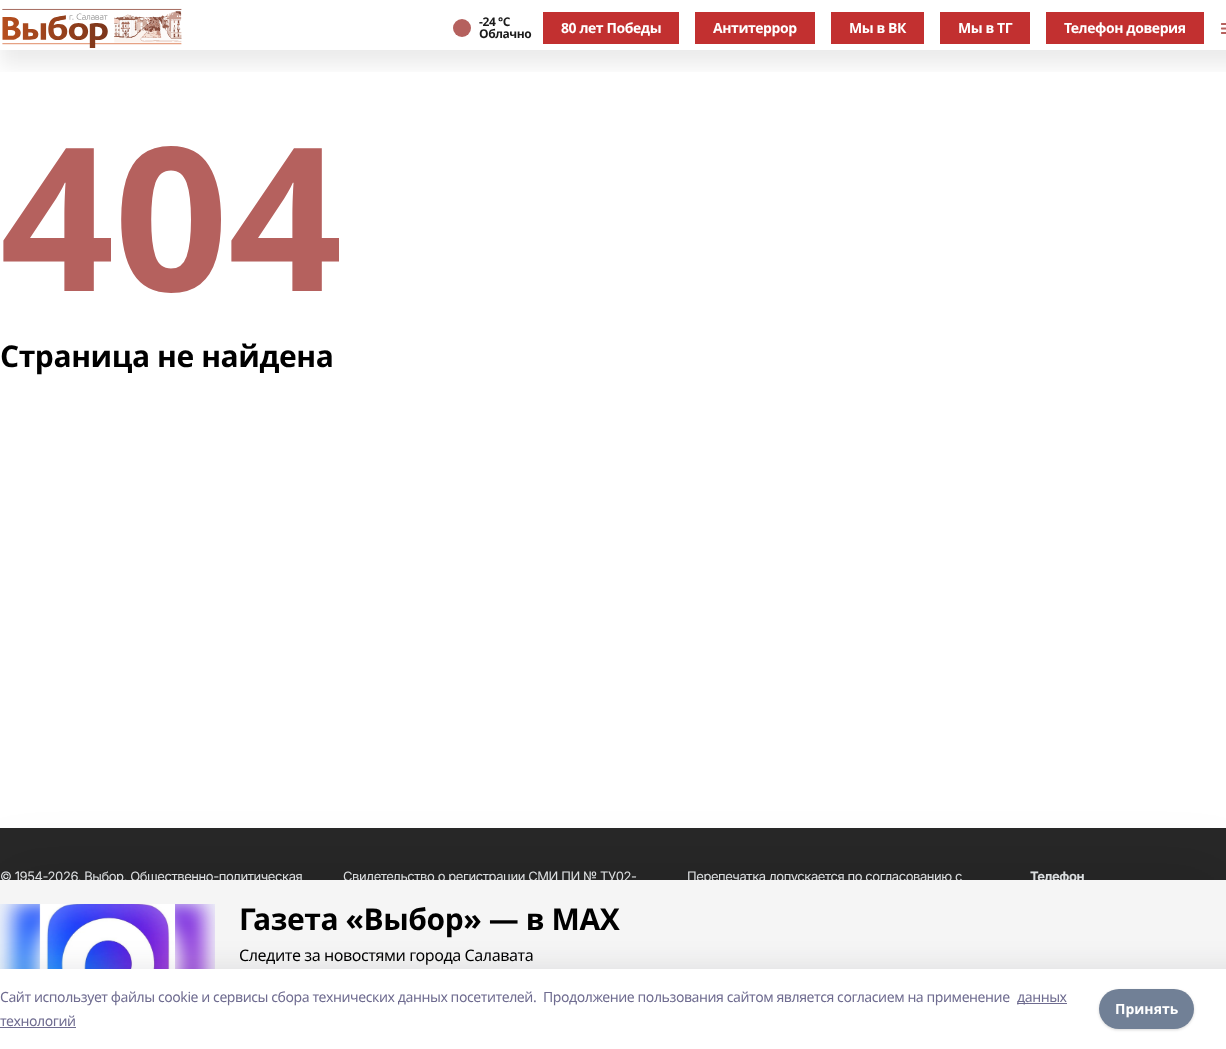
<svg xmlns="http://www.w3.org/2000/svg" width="1226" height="1049">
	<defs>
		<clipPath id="clip1"><rect x="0" y="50" width="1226" height="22" /></clipPath>
	</defs>
	<rect width="100%" height="100%" fill="#FFFFFF" />
	<g clip-path="url(#clip1)">
		<rect x="0" y="15" width="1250" height="50" fill="#000000" fill-opacity="0.08" filter="blur(10px)" />
	</g>
	<image x="2" y="8" width="180" height="40" href="assets/img1.png" />
	<circle cx="462" cy="28" r="9" fill="#B5615E" />
	<g font-family="Noto Sans" font-size="12" font-weight="700" letter-spacing="-0.42" fill="#1A1A1A">
		<text x="479" y="26">-24 °С</text>
		<text x="479" y="38">Облачно</text>
	</g>
	<rect x="543" y="12" width="136" height="32" fill="#C23030" />
	<text x="561" y="33" font-family="Noto Sans" font-size="14" font-weight="700" letter-spacing="-0.42" fill="#FFFFFF">80 лет Победы</text>
	<rect x="695" y="12" width="120" height="32" fill="#C23030" />
	<text x="713" y="33" font-family="Noto Sans" font-size="14" font-weight="700" letter-spacing="-0.42" fill="#FFFFFF">Антитеррор</text>
	<rect x="831" y="12" width="93" height="32" fill="#C23030" />
	<text x="849" y="33" font-family="Noto Sans" font-size="14" font-weight="700" letter-spacing="-0.42" fill="#FFFFFF">Мы в ВК</text>
	<rect x="940" y="12" width="90" height="32" fill="#C23030" />
	<text x="958" y="33" font-family="Noto Sans" font-size="14" font-weight="700" letter-spacing="-0.42" fill="#FFFFFF">Мы в ТГ</text>
	<rect x="1046" y="12" width="158" height="32" fill="#C23030" />
	<text x="1064" y="33" font-family="Noto Sans" font-size="14" font-weight="700" letter-spacing="-0.42" fill="#FFFFFF">Телефон доверия</text>
	<image x="1221" y="23" width="5" height="11" href="assets/img2.png" />
	<text x="0" y="291" font-family="Noto Sans" font-size="200" font-weight="700" letter-spacing="-0.42" fill="#B5615E">404</text>
	<text x="0" y="367" font-family="Noto Sans" font-size="30" font-weight="700" letter-spacing="-0.42" fill="#000000">Страница не найдена</text>
	<rect x="0" y="828" width="1226" height="52" fill="#282828" />
	<g font-family="Inter" font-size="13" letter-spacing="-0.42" fill="#ECEFF1">
		<text x="0" y="881">© 1954-2026, Выбор, Общественно-политическая</text>
		<text x="343" y="881">Свидетельство о регистрации СМИ ПИ № ТУ02-</text>
		<text x="687" y="881">Перепечатка допускается по согласованию с</text>
	</g>
	<text x="1030" y="881" font-family="Inter" font-size="13" font-weight="700" letter-spacing="-0.42" fill="#ECEFF1">Телефон</text>
	<rect x="0" y="870" width="1226" height="169" fill="#000000" fill-opacity="0.12" filter="blur(30px)" />
	<rect x="0" y="880" width="1226" height="89" fill="#F5F5F5" />
	<rect x="0" y="904" width="215" height="65" fill="#EDF2F7" />
	<image x="0" y="904" width="215" height="65" href="assets/img3.png" />
	<image x="39" y="904" width="137" height="65" href="assets/img4.png" />
	<text x="239" y="930" font-family="Noto Sans" font-size="30" font-weight="700" letter-spacing="-0.42" fill="#000000">Газета «Выбор» — в МАХ</text>
	<text x="239" y="961" font-family="Noto Sans" font-size="16" letter-spacing="-0.42" fill="#000000">Следите за новостями города Салавата</text>
	<rect x="0" y="963" width="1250" height="80" fill="#14142B" fill-opacity="0.08" filter="blur(11.5px)" />
	<rect x="0" y="969" width="1226" height="80" fill="#FFFFFF" />
	<g font-family="Noto Sans" font-size="14" letter-spacing="-0.42" fill="#6F6C90">
		<text x="0" y="1002">Cайт использует файлы cookie и сервисы сбора технических данных посетителей.</text>
		<text x="543" y="1002">Продолжение пользования сайтом является согласием на применение</text>
	</g>
	<rect x="1017" y="1003" width="50" height="1" fill="#6F6C90" />
	<g font-family="Noto Sans" font-size="14" letter-spacing="-0.42" fill="#6F6C90">
		<text x="1017" y="1002">данных</text>
		<text x="0" y="1026">технологий</text>
	</g>
	<rect x="0" y="1027" width="76" height="1" fill="#6F6C90" />
	<rect x="1099" y="990" width="95" height="40" rx="20" fill="#000000" fill-opacity="0.06" filter="blur(1px)" />
	<rect x="1099" y="990" width="95" height="40" rx="20" fill="#000000" fill-opacity="0.1" filter="blur(1.5px)" />
	<rect x="1099" y="989" width="95" height="40" rx="20" fill="#718096" />
	<text x="1115" y="1014" font-family="Noto Sans" font-size="14" font-weight="700" fill="#FFFFFF">Принять</text>
</svg>
